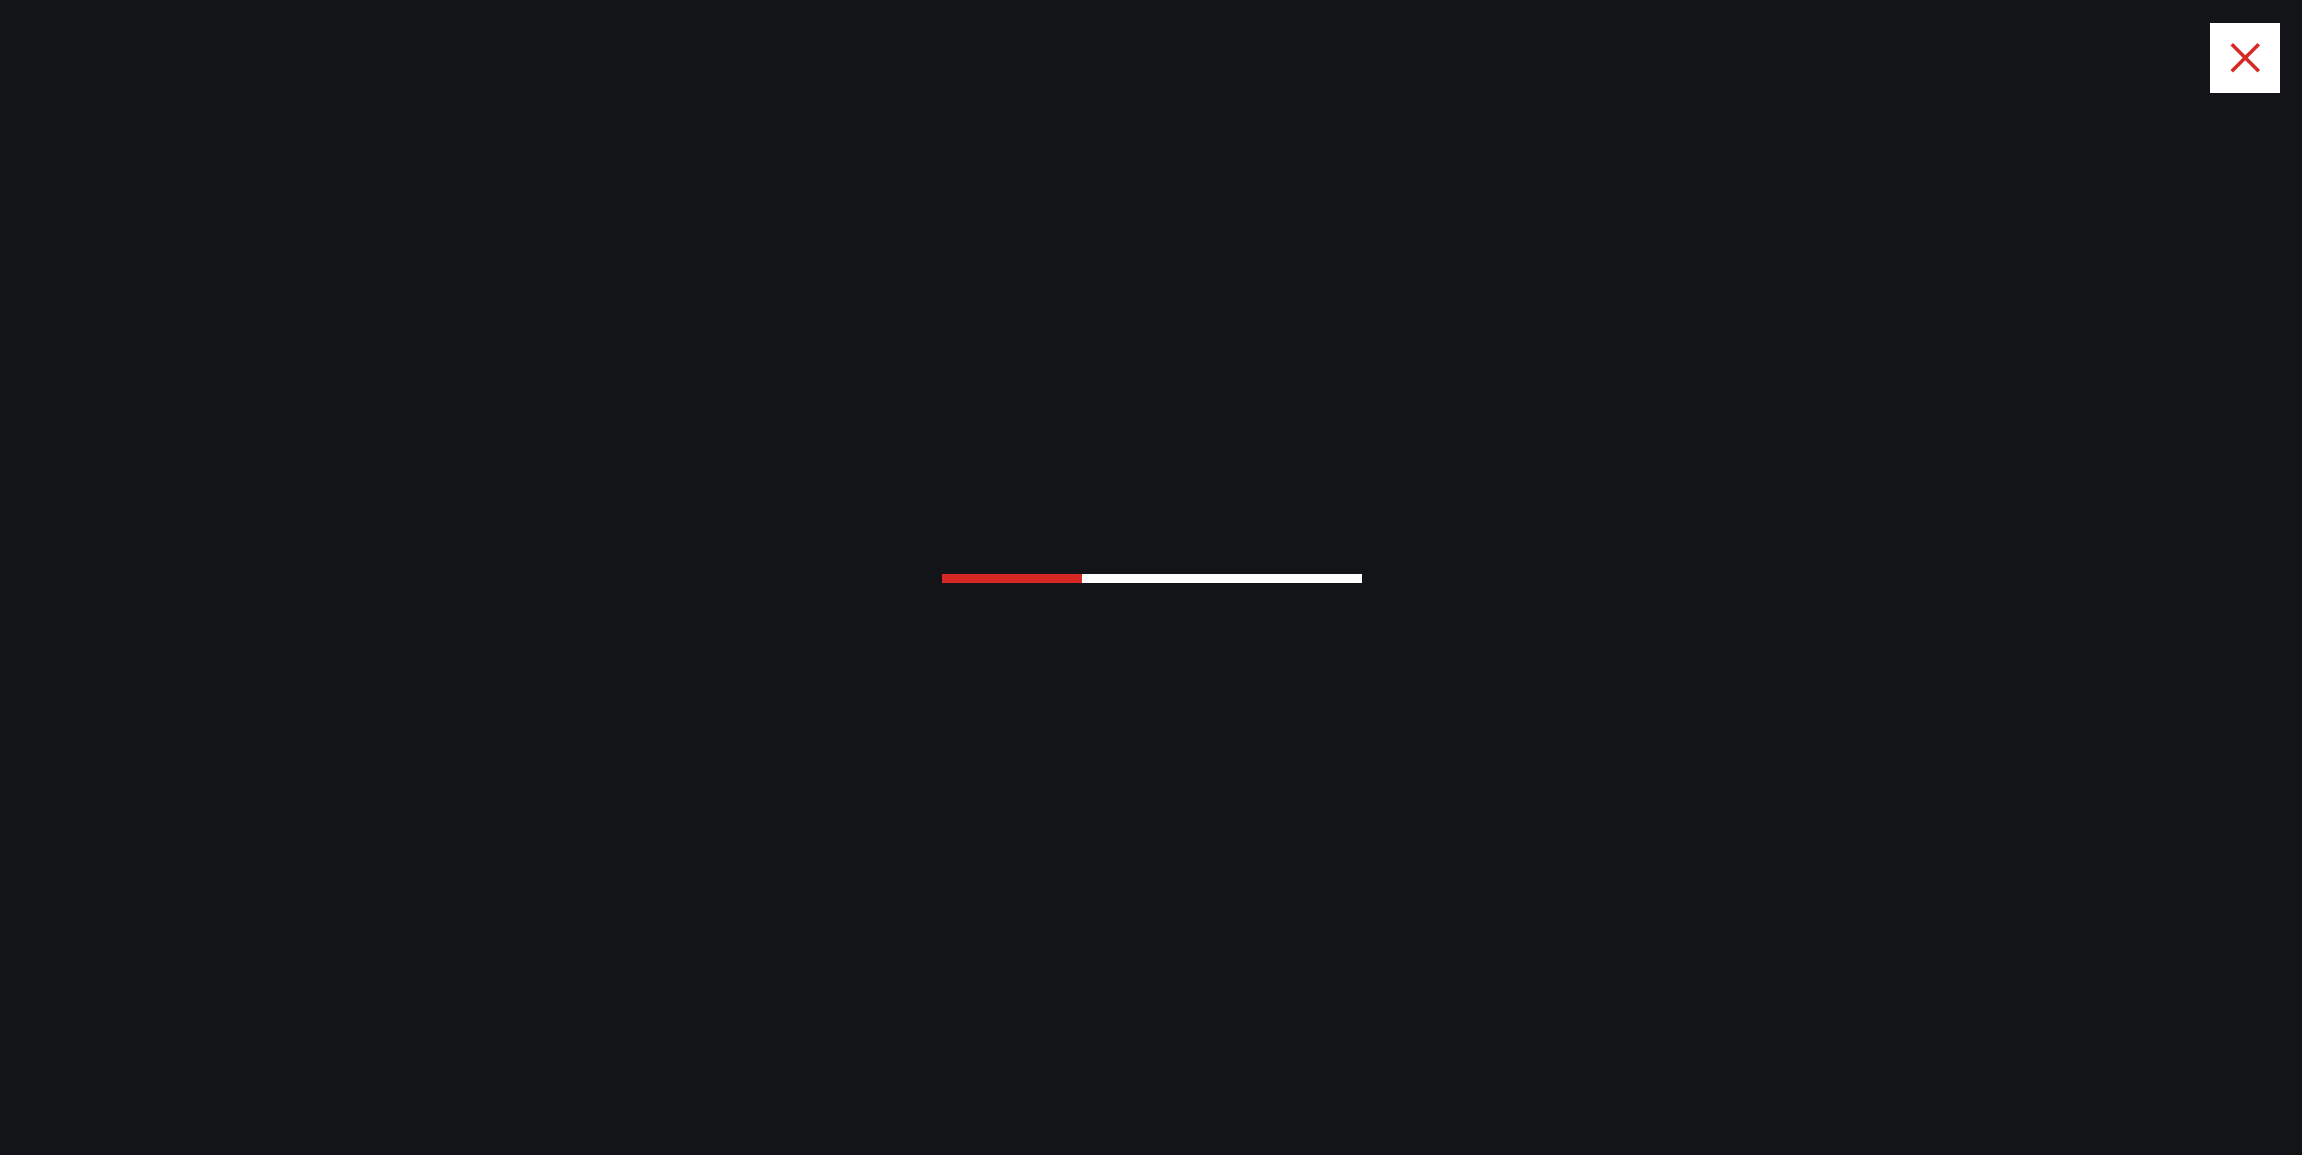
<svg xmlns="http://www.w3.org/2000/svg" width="2302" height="1155">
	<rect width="100%" height="100%" fill="#121418" />
	<rect x="2210" y="23" width="70" height="70" fill="#FFFFFF" />
	<path d="M2230.5 70L2257.5 43L2260 45.5L2233 72.5Z" fill="#D72924" />
	<path d="M2257.5 72.5L2230.5 45.5L2233 43L2260 70Z" fill="#D72924" />
	<rect x="1082" y="574" width="280" height="9" fill="#FFFFFF" />
	<rect x="942" y="574" width="140" height="9" fill="#D72924" />
</svg>
